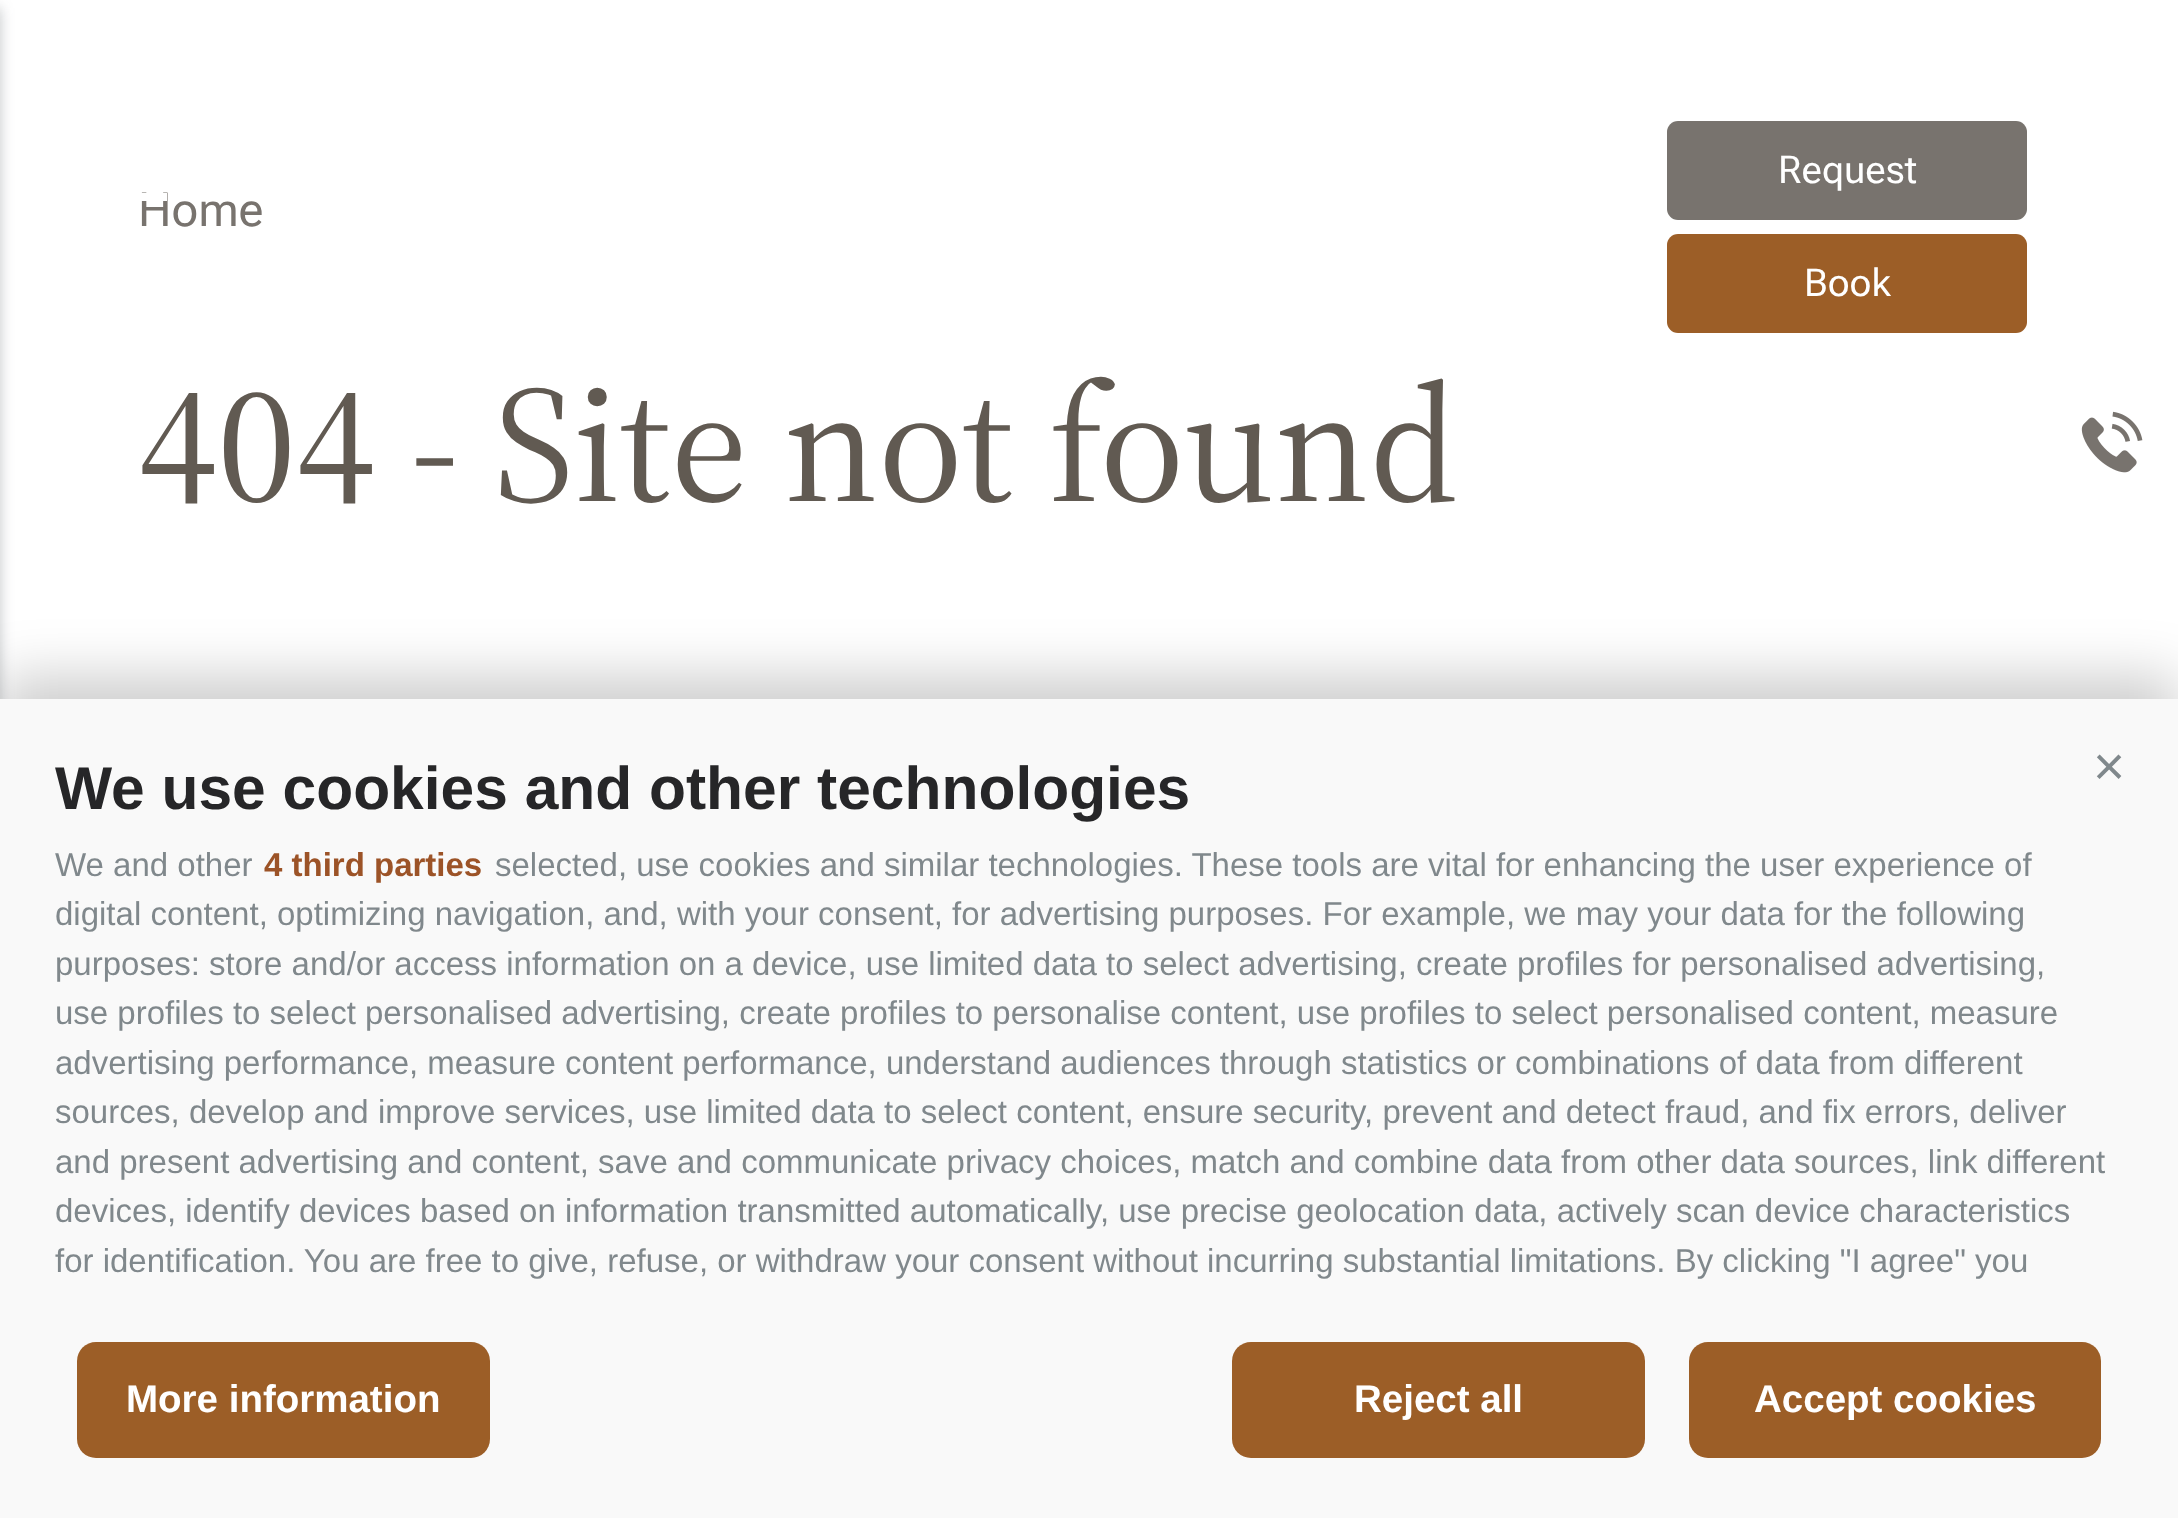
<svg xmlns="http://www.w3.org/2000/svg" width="2178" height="1518">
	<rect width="100%" height="100%" fill="#FFFFFF" />
	<text x="138" y="226" font-family="Roboto Flex" font-size="47" fill="#78736E">Home</text>
	<text x="138" y="501" font-family="'Source Serif 4'" font-size="165" fill="#615A52">404 - Site not found</text>
	<rect x="138" y="193" width="29" height="8" fill="#FFFFFF" />
	<rect x="-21" y="8" width="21" height="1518" fill="#393F48" fill-opacity="0.3" filter="blur(7px)" />
	<rect x="1667" y="121" width="360" height="99" rx="11" fill="#78736E" />
	<text x="1778" y="183" font-family="Roboto Flex" font-size="38.5" fill="#FFFFFF">Request</text>
	<rect x="1667" y="234" width="360" height="99" rx="11" fill="#9C5E27" />
	<text x="1804" y="296" font-family="Roboto Flex" font-size="38.5" fill="#FFFFFF">Book</text>
	<image x="2081" y="411" width="62" height="62" href="assets/img1.png" />
	<rect x="0" y="677" width="2178" height="819" fill="#000000" fill-opacity="0.2" filter="blur(27.5px)" />
	<rect x="0" y="699" width="2178" height="819" fill="#F9F9F9" />
	<text x="55" y="809" font-family="Liberation Sans" font-size="60.5" font-weight="700" fill="#262628">We use cookies and other technologies</text>
	<text x="2093" y="785" font-family="Liberation Sans" font-size="55" fill="#80888C">×</text>
	<text x="55" y="876" font-family="Liberation Sans" font-size="33" fill="#80888C">We and other</text>
	<text x="264" y="876" font-family="Liberation Sans" font-size="33" font-weight="700" fill="#9C5327">4 third parties</text>
	<g font-family="Liberation Sans" font-size="33" fill="#80888C">
		<text x="495" y="876">selected, use cookies and similar technologies. These tools are vital for enhancing the user experience of</text>
		<text x="55" y="925">digital content, optimizing navigation, and, with your consent, for advertising purposes. For example, we may your data for the following</text>
		<text x="55" y="975">purposes: store and/or access information on a device, use limited data to select advertising, create profiles for personalised advertising,</text>
		<text x="55" y="1024">use profiles to select personalised advertising, create profiles to personalise content, use profiles to select personalised content, measure</text>
		<text x="55" y="1074">advertising performance, measure content performance, understand audiences through statistics or combinations of data from different</text>
		<text x="55" y="1123">sources, develop and improve services, use limited data to select content, ensure security, prevent and detect fraud, and fix errors, deliver</text>
		<text x="55" y="1173">and present advertising and content, save and communicate privacy choices, match and combine data from other data sources, link different</text>
		<text x="55" y="1222">devices, identify devices based on information transmitted automatically, use precise geolocation data, actively scan device characteristics</text>
		<text x="55" y="1272">for identification. You are free to give, refuse, or withdraw your consent without incurring substantial limitations. By clicking "I agree" you</text>
	</g>
	<rect x="77" y="1342" width="413" height="116" rx="19" fill="#9C5E27" />
	<text x="126" y="1412" font-family="Liberation Sans" font-size="38.5" font-weight="700" fill="#FFFFFF">More information</text>
	<rect x="1232" y="1342" width="413" height="116" rx="19" fill="#9C5E27" />
	<text x="1354" y="1412" font-family="Liberation Sans" font-size="38.5" font-weight="700" fill="#FFFFFF">Reject all</text>
	<rect x="1689" y="1342" width="412" height="116" rx="19" fill="#9C5E27" />
	<text x="1754" y="1412" font-family="Liberation Sans" font-size="38.5" font-weight="700" fill="#FFFFFF">Accept cookies</text>
</svg>
